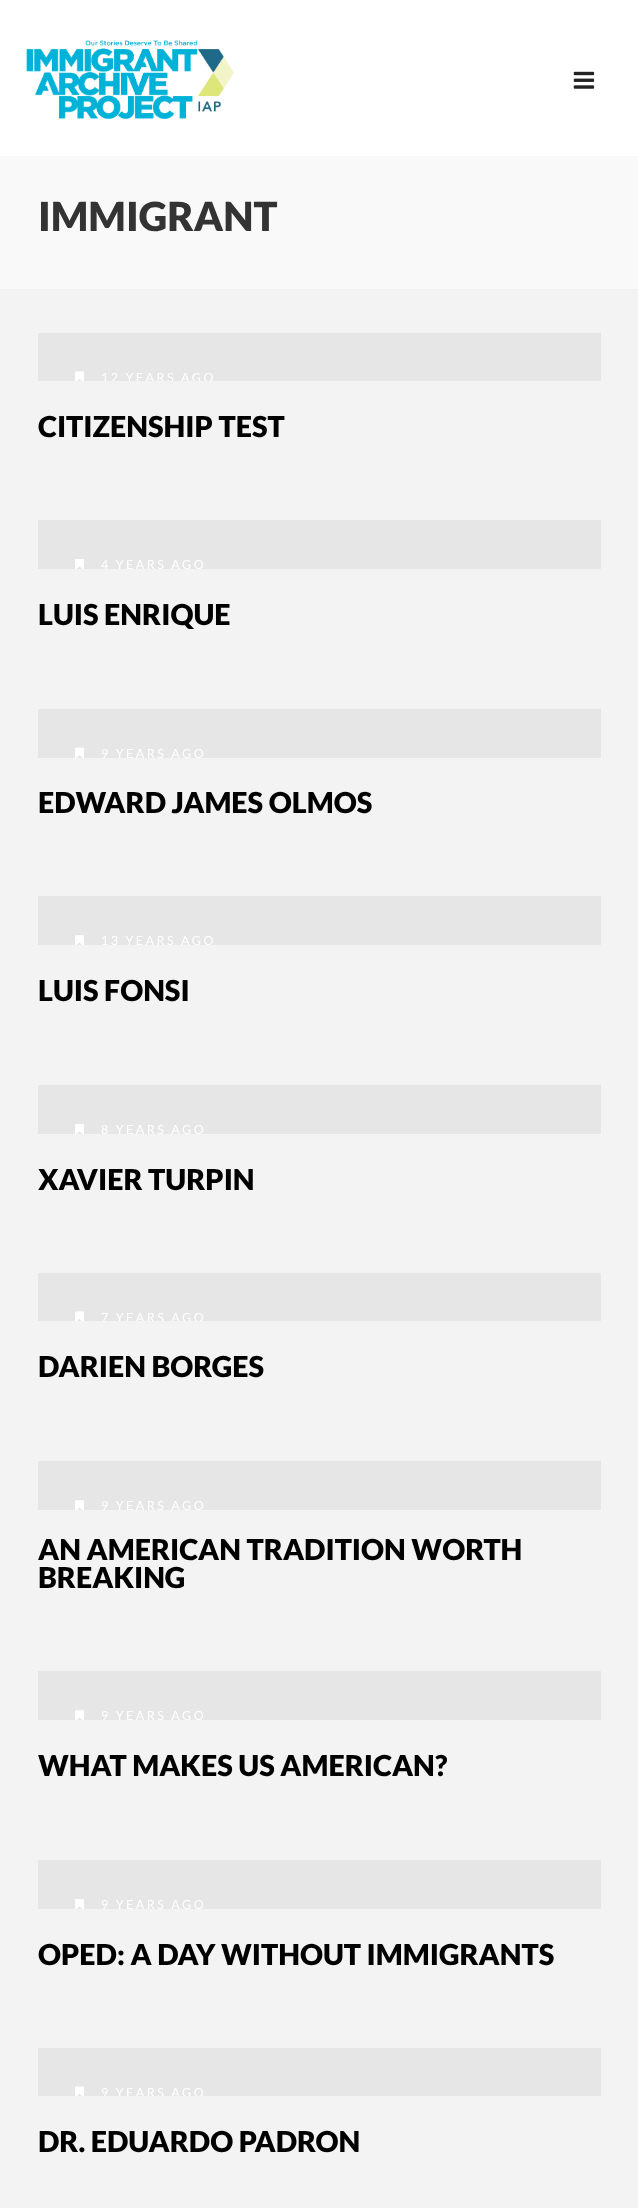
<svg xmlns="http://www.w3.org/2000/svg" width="638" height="2208">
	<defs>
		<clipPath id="clip1"><rect x="38" y="333" width="563" height="48" /></clipPath>
		<clipPath id="clip2"><rect x="38" y="1273" width="563" height="48" /></clipPath>
		<clipPath id="clip3"><rect x="38" y="2048" width="563" height="48" /></clipPath>
	</defs>
	<rect width="100%" height="100%" fill="#FFFFFF" />
	<image x="26" y="40" width="209" height="80" href="assets/img1.png" />
	<image x="573" y="71" width="22" height="18" href="assets/img2.png" />
	<rect x="0" y="289" width="638" height="1919" fill="#F3F3F3" />
	<rect x="0" y="156" width="638" height="133" fill="#F9F9F9" />
	<text x="38" y="231" font-family="Lato" font-size="40" font-weight="900" fill="#333333">IMMIGRANT</text>
	<rect x="38" y="333" width="563" height="48" fill="#E6E6E6" />
	<image x="75" y="371" width="9" height="10" href="assets/img3.png" />
	<g clip-path="url(#clip1)">
		<text x="101" y="382" font-family="Lato" font-size="12.5" letter-spacing="2.5" fill="#FFFFFF">12 YEARS AGO</text>
	</g>
	<text x="38" y="437" font-family="Lato" font-size="28.75" font-weight="900" fill="#000000">CITIZENSHIP TEST</text>
	<rect x="38" y="520" width="563" height="49" fill="#E6E6E6" />
	<image x="75" y="559" width="9" height="10" href="assets/img4.png" />
	<text x="101" y="569" font-family="Lato" font-size="12.5" letter-spacing="2.5" fill="#FFFFFF">4 YEARS AGO</text>
	<text x="38" y="625" font-family="Lato" font-size="28.75" font-weight="900" fill="#000000">LUIS ENRIQUE</text>
	<rect x="38" y="709" width="563" height="49" fill="#E6E6E6" />
	<image x="75" y="747" width="9" height="11" href="assets/img5.png" />
	<text x="101" y="758" font-family="Lato" font-size="12.5" letter-spacing="2.5" fill="#FFFFFF">9 YEARS AGO</text>
	<text x="38" y="813" font-family="Lato" font-size="28.75" font-weight="900" fill="#000000">EDWARD JAMES OLMOS</text>
	<rect x="38" y="896" width="563" height="49" fill="#E6E6E6" />
	<image x="75" y="935" width="9" height="10" href="assets/img6.png" />
	<text x="101" y="945" font-family="Lato" font-size="12.5" letter-spacing="2.5" fill="#FFFFFF">13 YEARS AGO</text>
	<text x="38" y="1001" font-family="Lato" font-size="28.75" font-weight="900" fill="#000000">LUIS FONSI</text>
	<rect x="38" y="1085" width="563" height="49" fill="#E6E6E6" />
	<image x="75" y="1124" width="9" height="10" href="assets/img4.png" />
	<text x="101" y="1134" font-family="Lato" font-size="12.5" letter-spacing="2.5" fill="#FFFFFF">8 YEARS AGO</text>
	<text x="38" y="1190" font-family="Lato" font-size="28.75" font-weight="900" fill="#000000">XAVIER TURPIN</text>
	<rect x="38" y="1273" width="563" height="48" fill="#E6E6E6" />
	<image x="75" y="1311" width="9" height="10" href="assets/img3.png" />
	<g clip-path="url(#clip2)">
		<text x="101" y="1322" font-family="Lato" font-size="12.5" letter-spacing="2.5" fill="#FFFFFF">7 YEARS AGO</text>
	</g>
	<text x="38" y="1377" font-family="Lato" font-size="28.75" font-weight="900" fill="#000000">DARIEN BORGES</text>
	<rect x="38" y="1461" width="563" height="49" fill="#E6E6E6" />
	<image x="75" y="1500" width="9" height="10" href="assets/img6.png" />
	<text x="101" y="1510" font-family="Lato" font-size="12.5" letter-spacing="2.5" fill="#FFFFFF">9 YEARS AGO</text>
	<g font-family="Lato" font-size="28.75" font-weight="900" fill="#000000">
		<text x="38" y="1560">AN AMERICAN TRADITION WORTH</text>
		<text x="38" y="1588">BREAKING</text>
	</g>
	<rect x="38" y="1671" width="563" height="49" fill="#E6E6E6" />
	<image x="75" y="1710" width="9" height="10" href="assets/img6.png" />
	<text x="101" y="1720" font-family="Lato" font-size="12.5" letter-spacing="2.5" fill="#FFFFFF">9 YEARS AGO</text>
	<text x="38" y="1776" font-family="Lato" font-size="28.75" font-weight="900" fill="#000000">WHAT MAKES US AMERICAN?</text>
	<rect x="38" y="1860" width="563" height="49" fill="#E6E6E6" />
	<image x="75" y="1899" width="9" height="10" href="assets/img4.png" />
	<text x="101" y="1909" font-family="Lato" font-size="12.5" letter-spacing="2.5" fill="#FFFFFF">9 YEARS AGO</text>
	<text x="38" y="1965" font-family="Lato" font-size="28.75" font-weight="900" fill="#000000">OPED: A DAY WITHOUT IMMIGRANTS</text>
	<rect x="38" y="2048" width="563" height="48" fill="#E6E6E6" />
	<image x="75" y="2086" width="9" height="10" href="assets/img3.png" />
	<g clip-path="url(#clip3)">
		<text x="101" y="2097" font-family="Lato" font-size="12.5" letter-spacing="2.5" fill="#FFFFFF">9 YEARS AGO</text>
	</g>
	<text x="38" y="2152" font-family="Lato" font-size="28.75" font-weight="900" fill="#000000">DR. EDUARDO PADRON</text>
</svg>
